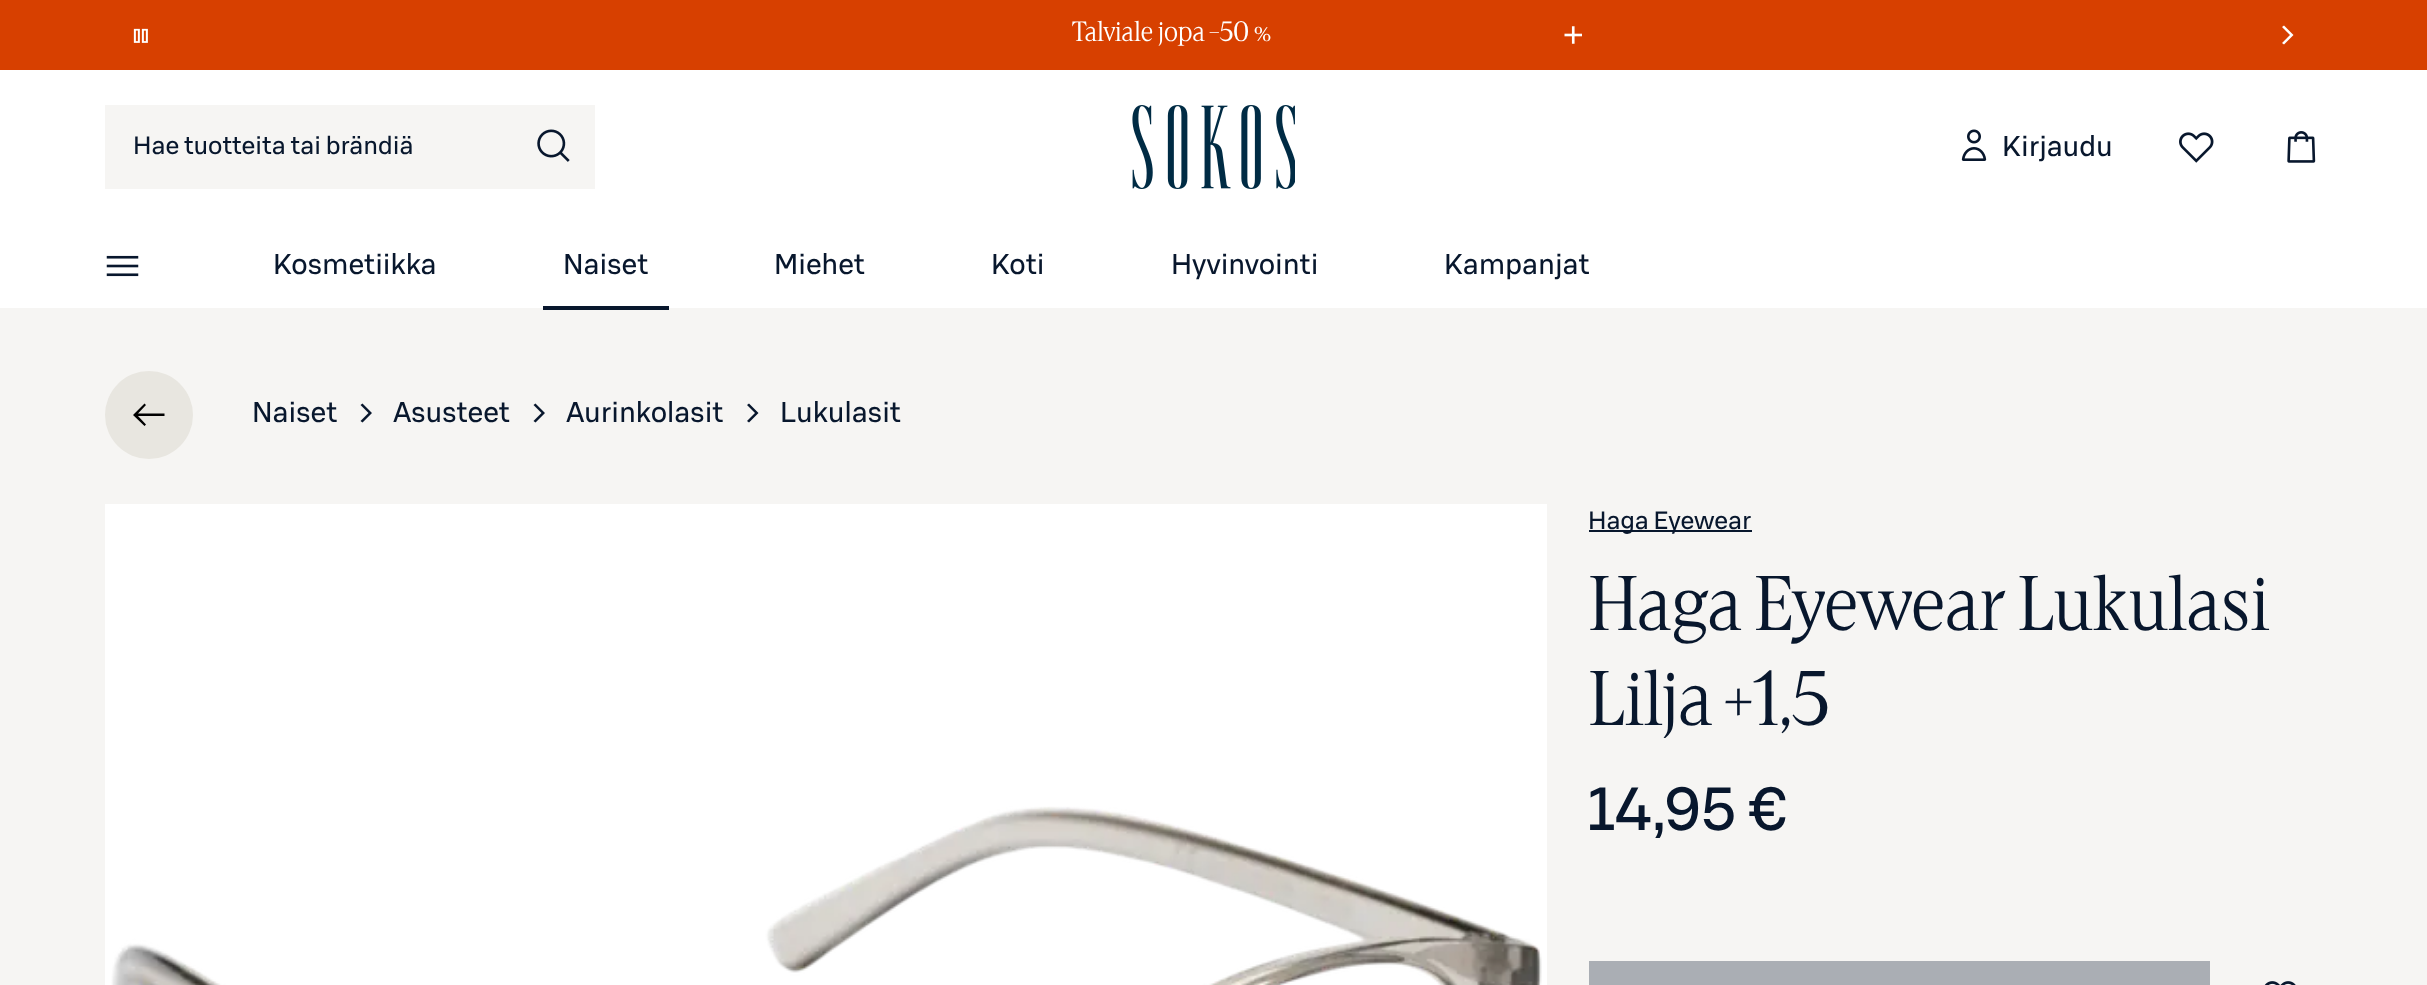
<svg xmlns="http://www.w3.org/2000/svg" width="2427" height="985">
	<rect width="100%" height="100%" fill="#FFFFFF" />
	<rect x="0" y="0" width="2427" height="70" fill="#D74000" />
	<image x="133" y="28" width="15" height="15" href="assets/img1.png" />
	<text x="1072" y="41" font-family="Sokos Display" font-size="28" fill="#FFFFFF">Talviale jopa –50 %</text>
	<image x="1564" y="26" width="18" height="18" href="assets/img2.png" />
	<path d="M2290 35L2282 27L2284 25.5L2293.5 35L2284 44.5L2282 43Z" fill="#FFFFFF" fill-rule="evenodd" />
	<rect x="105" y="105" width="490" height="84" fill="#F6F5F3" />
	<text x="133" y="154" font-family="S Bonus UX" font-size="24.5" fill="#08172D">Hae tuotteita tai brändiä</text>
	<image x="537" y="129" width="33" height="33" href="assets/img3.png" />
	<image x="1132" y="105" width="163" height="84" href="assets/img4.png" />
	<image x="1961" y="129" width="26" height="32" href="assets/img5.png" />
	<text x="2002" y="156" font-family="S Bonus UX" font-size="28" fill="#08172D">Kirjaudu</text>
	<image x="2179" y="132" width="35" height="31" href="assets/img6.png" />
	<image x="2287" y="131" width="29" height="32" href="assets/img7.png" />
	<image x="106" y="255" width="33" height="22" href="assets/img8.png" />
	<g font-family="S Bonus UX" font-size="28" fill="#08172D">
		<text x="273" y="274">Kosmetiikka</text>
		<text x="563" y="274">Naiset</text>
	</g>
	<rect x="0" y="308" width="2427" height="677" fill="#F6F5F3" />
	<rect x="543" y="306" width="126" height="4" fill="#08172D" />
	<g font-family="S Bonus UX" font-size="28" fill="#08172D">
		<text x="774" y="274">Miehet</text>
		<text x="991" y="274">Koti</text>
		<text x="1171" y="274">Hyvinvointi</text>
		<text x="1444" y="274">Kampanjat</text>
	</g>
	<circle cx="149" cy="415" r="44" fill="#E8E6E0" />
	<path d="M138 413.5H164.5V416H138L146 424.5L144.5 426L133 415L144.5 403.5L146 405Z" fill="#000000" fill-rule="evenodd" />
	<text x="252" y="422" font-family="S Bonus UX" font-size="28" fill="#08172D">Naiset</text>
	<path d="M368.5 413L360.5 405L362.5 403.5L372 413L362.5 422.5L360.5 421Z" fill="#08172D" fill-rule="evenodd" />
	<text x="393" y="422" font-family="S Bonus UX" font-size="28" fill="#08172D">Asusteet</text>
	<path d="M541.5 413L533.5 405L535.5 403.5L545 413L535.5 422.5L533.5 421Z" fill="#08172D" fill-rule="evenodd" />
	<text x="566" y="422" font-family="S Bonus UX" font-size="28" fill="#08172D">Aurinkolasit</text>
	<path d="M755 413L747 405L749 403.5L758.5 413L749 422.5L747 421Z" fill="#08172D" fill-rule="evenodd" />
	<text x="780" y="422" font-family="S Bonus UX" font-size="28" fill="#08172D">Lukulasit</text>
	<rect x="105" y="504" width="1442" height="481" fill="#FFFFFF" />
	<image x="111" y="806" width="1431" height="179" href="assets/img9.png" />
	<rect x="1589" y="530" width="163" height="2" fill="#08172D" />
	<text x="1588" y="529" font-family="S Bonus UX" font-size="24.5" fill="#08172D">Haga Eyewear</text>
	<g font-family="Sokos Display" font-size="77" fill="#08172D">
		<text x="1588" y="630">Haga Eyewear Lukulasi</text>
		<text x="1588" y="725">Lilja +1,5</text>
	</g>
	<text x="1588" y="830" font-family="S Bonus UX" font-size="59.5" fill="#08172D">14,95 €</text>
	<rect x="1589" y="961" width="621" height="24" fill="#AAAEB4" />
	<image x="2264" y="981" width="32" height="4" href="assets/img10.png" />
</svg>
